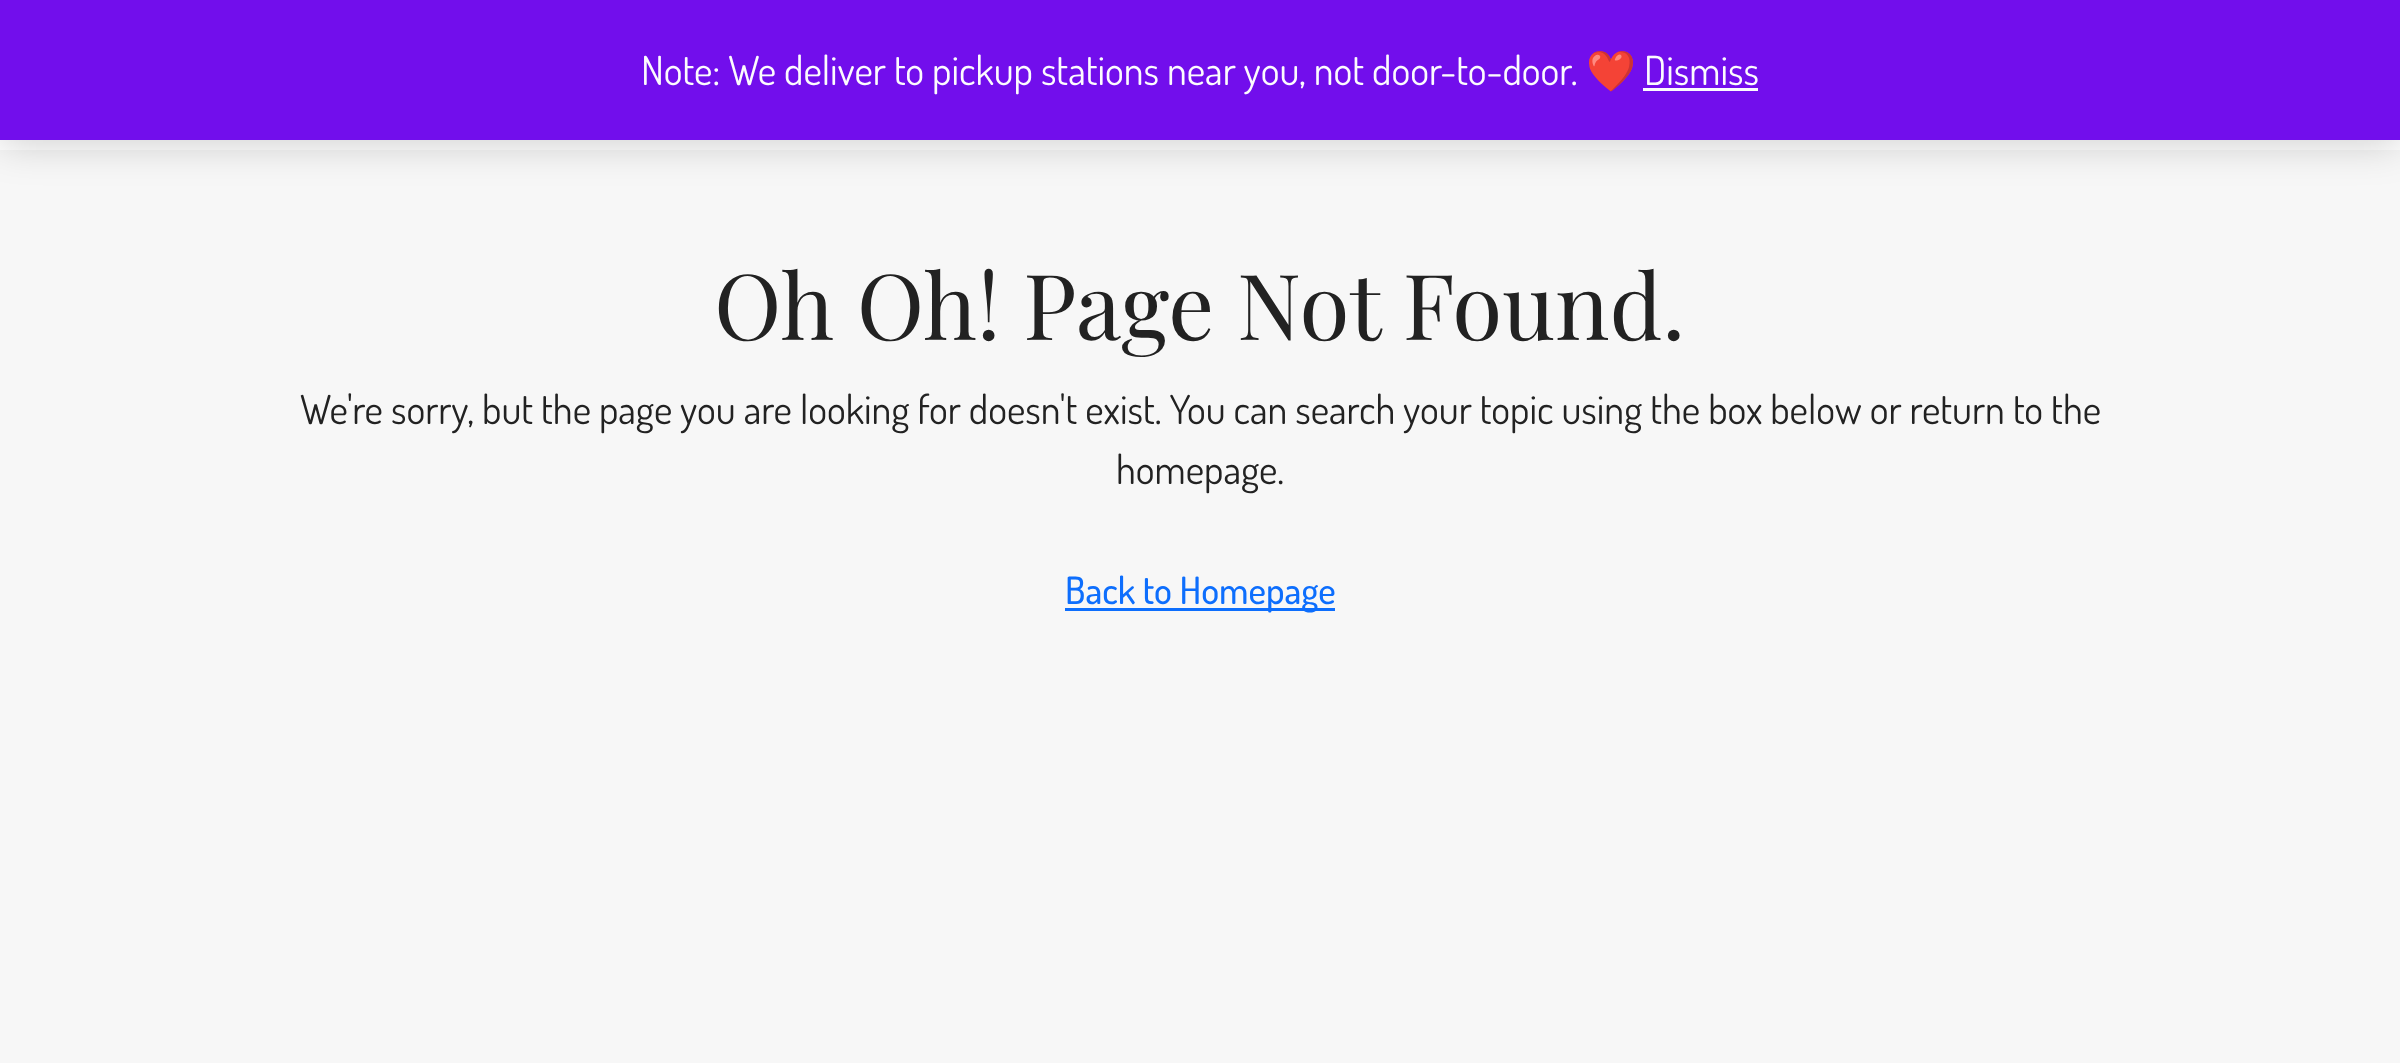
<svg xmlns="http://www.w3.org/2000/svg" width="2400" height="1063">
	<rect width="100%" height="100%" fill="#F7F7F7" />
	<rect x="0" y="140" width="2400" height="10" fill="#FFFFFF" />
	<rect x="0" y="3" width="2400" height="140" fill="#000000" fill-opacity="0.2" filter="blur(20px)" />
	<rect x="0" y="0" width="2400" height="140" fill="#720EEC" />
	<text x="641" y="85" font-family="Dosis" font-size="40" fill="#FCFBFE">Note: We deliver to pickup stations near you, not door-to-door.</text>
	<text x="1586" y="85" font-family="Noto Color Emoji" font-size="40" fill="#FCFBFE">❤️</text>
	<text x="1644" y="85" font-family="Dosis" font-size="40" fill="#FCFBFE">Dismiss</text>
	<rect x="1643" y="88" width="115" height="3" fill="#FCFBFE" />
	<text x="714" y="340" font-family="Playfair Display" font-size="91" fill="#222222">Oh Oh! Page Not Found.</text>
	<g font-family="Dosis" font-size="40" fill="#222222">
		<text x="300" y="424">We're sorry, but the page you are looking for doesn't exist. You can search your topic using the box below or return to the</text>
		<text x="1116" y="484">homepage.</text>
	</g>
	<rect x="1065" y="608" width="270" height="3" fill="#0D6EFD" />
	<text x="1065" y="604" font-family="Dosis" font-size="37.5" font-weight="500" fill="#0D6EFD">Back to Homepage</text>
</svg>
